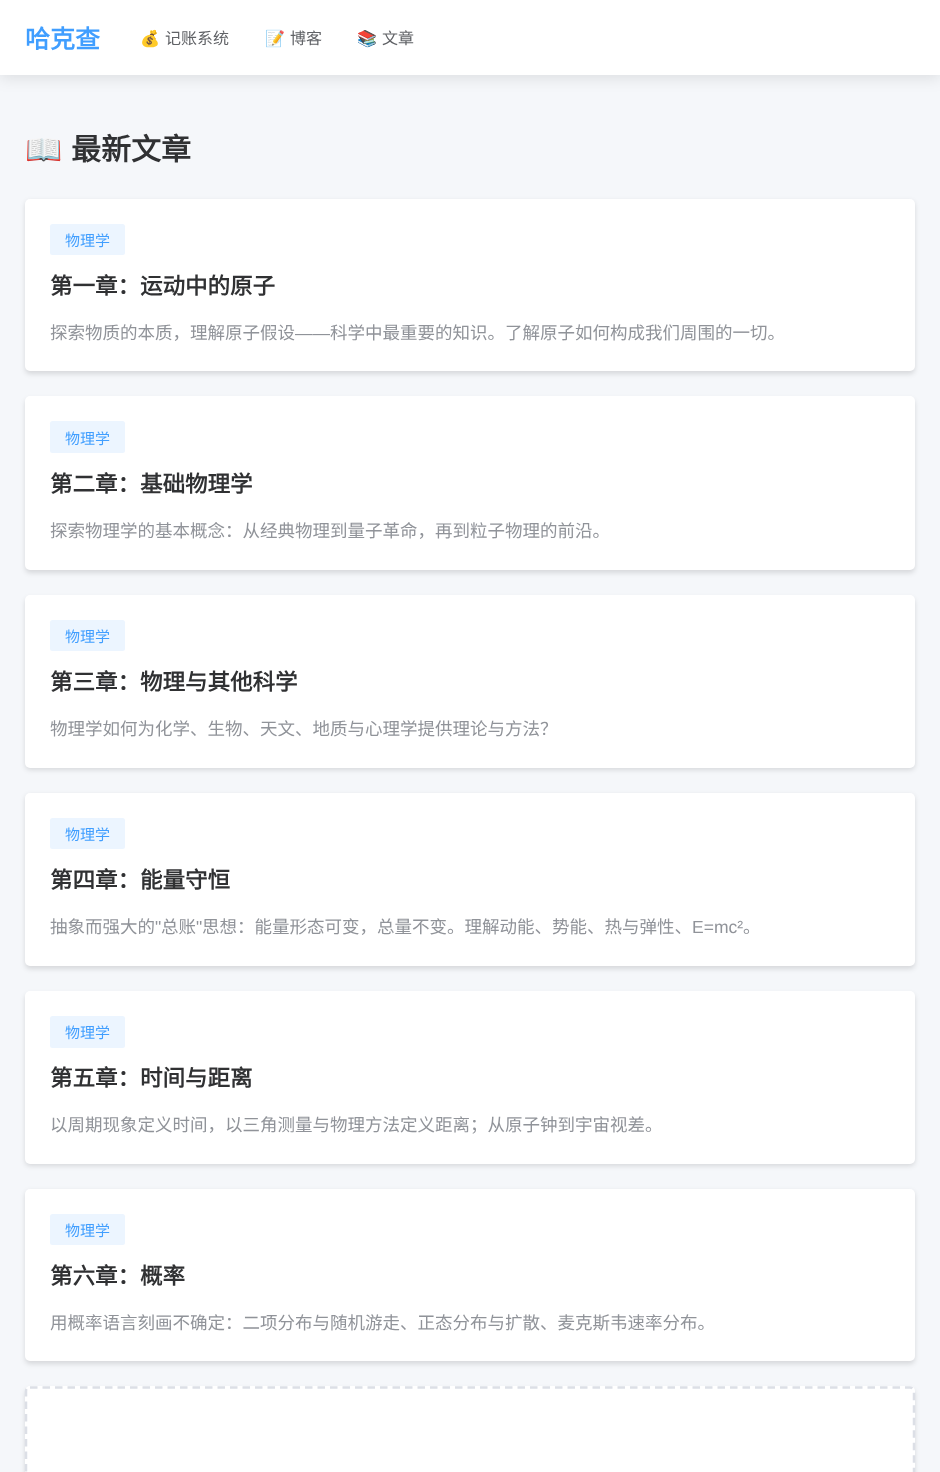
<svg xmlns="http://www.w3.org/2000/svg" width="940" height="1472">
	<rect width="100%" height="100%" fill="#F5F7FA" />
	<rect x="0" y="3" width="940" height="75" fill="#000000" fill-opacity="0.1" filter="blur(7.5px)" />
	<rect x="0" y="0" width="940" height="75" fill="#FFFFFF" />
	<text x="25" y="48" font-family="Noto Sans CJK SC" font-size="25" font-weight="700" fill="#409EFF">哈克查</text>
	<text x="140" y="44" font-family="Noto Color Emoji" font-size="16" fill="#606266">💰</text>
	<text x="165" y="44" font-family="Noto Sans CJK SC" font-size="16" fill="#606266">记账系统</text>
	<text x="265" y="44" font-family="Noto Color Emoji" font-size="16" fill="#606266">📝</text>
	<text x="290" y="44" font-family="Noto Sans CJK SC" font-size="16" fill="#606266">博客</text>
	<text x="357" y="44" font-family="Noto Color Emoji" font-size="16" fill="#606266">📚</text>
	<text x="382" y="44" font-family="Noto Sans CJK SC" font-size="16" fill="#606266">文章</text>
	<text x="25" y="160" font-family="Noto Color Emoji" font-size="30" font-weight="700" fill="#303133">📖</text>
	<text x="71" y="160" font-family="Noto Sans CJK SC" font-size="30" font-weight="700" fill="#303133">最新文章</text>
	<rect x="25" y="201" width="890" height="173" rx="5" fill="#000000" fill-opacity="0.12" filter="blur(2.5px)" />
	<rect x="25" y="199" width="890" height="172" rx="5" fill="#FFFFFF" />
	<rect x="50" y="224" width="75" height="31" rx="2.5" fill="#ECF5FF" />
	<text x="65" y="246" font-family="Noto Sans CJK SC" font-size="15" fill="#409EFF">物理学</text>
	<text x="50" y="294" font-family="Noto Sans CJK SC" font-size="22.5" font-weight="700" fill="#303133">第一章：运动中的原子</text>
	<text x="50" y="339" font-family="Noto Sans CJK SC" font-size="17.5" fill="#909399">探索物质的本质，理解原子假设</text>
	<text x="295" y="339" font-family="Liberation Sans" font-size="17.5" fill="#909399">——</text>
	<text x="330" y="339" font-family="Noto Sans CJK SC" font-size="17.5" fill="#909399">科学中最重要的知识。了解原子如何构成我们周围的一切。</text>
	<rect x="25" y="399" width="890" height="174" rx="5" fill="#000000" fill-opacity="0.12" filter="blur(2.5px)" />
	<rect x="25" y="396" width="890" height="174" rx="5" fill="#FFFFFF" />
	<rect x="50" y="421" width="75" height="32" rx="2.5" fill="#ECF5FF" />
	<text x="65" y="444" font-family="Noto Sans CJK SC" font-size="15" fill="#409EFF">物理学</text>
	<text x="50" y="492" font-family="Noto Sans CJK SC" font-size="22.5" font-weight="700" fill="#303133">第二章：基础物理学</text>
	<text x="50" y="537" font-family="Noto Sans CJK SC" font-size="17.5" fill="#909399">探索物理学的基本概念：从经典物理到量子革命，再到粒子物理的前沿。</text>
	<rect x="25" y="598" width="890" height="172" rx="5" fill="#000000" fill-opacity="0.12" filter="blur(2.5px)" />
	<rect x="25" y="595" width="890" height="173" rx="5" fill="#FFFFFF" />
	<rect x="50" y="620" width="75" height="31" rx="2.5" fill="#ECF5FF" />
	<text x="65" y="642" font-family="Noto Sans CJK SC" font-size="15" fill="#409EFF">物理学</text>
	<text x="50" y="690" font-family="Noto Sans CJK SC" font-size="22.5" font-weight="700" fill="#303133">第三章：物理与其他科学</text>
	<text x="50" y="735" font-family="Noto Sans CJK SC" font-size="17.5" fill="#909399">物理学如何为化学、生物、天文、地质与心理学提供理论与方法？</text>
	<rect x="25" y="795" width="890" height="174" rx="5" fill="#000000" fill-opacity="0.12" filter="blur(2.5px)" />
	<rect x="25" y="793" width="890" height="173" rx="5" fill="#FFFFFF" />
	<rect x="50" y="818" width="75" height="31" rx="2.5" fill="#ECF5FF" />
	<text x="65" y="840" font-family="Noto Sans CJK SC" font-size="15" fill="#409EFF">物理学</text>
	<text x="50" y="888" font-family="Noto Sans CJK SC" font-size="22.5" font-weight="700" fill="#303133">第四章：能量守恒</text>
	<text x="50" y="933" font-family="Noto Sans CJK SC" font-size="17.5" fill="#909399">抽象而强大的</text>
	<text x="155" y="933" font-family="Liberation Sans" font-size="17.5" fill="#909399">"</text>
	<text x="161" y="933" font-family="Noto Sans CJK SC" font-size="17.5" fill="#909399">总账</text>
	<text x="196" y="933" font-family="Liberation Sans" font-size="17.5" fill="#909399">"</text>
	<text x="202" y="933" font-family="Noto Sans CJK SC" font-size="17.5" fill="#909399">思想：能量形态可变，总量不变。理解动能、势能、热与弹性、</text>
	<text x="692" y="933" font-family="Liberation Sans" font-size="17.5" fill="#909399">E=mc²</text>
	<text x="743" y="933" font-family="Noto Sans CJK SC" font-size="17.5" fill="#909399">。</text>
	<rect x="25" y="994" width="890" height="172" rx="5" fill="#000000" fill-opacity="0.12" filter="blur(2.5px)" />
	<rect x="25" y="991" width="890" height="173" rx="5" fill="#FFFFFF" />
	<rect x="50" y="1016" width="75" height="32" rx="2.5" fill="#ECF5FF" />
	<text x="65" y="1038" font-family="Noto Sans CJK SC" font-size="15" fill="#409EFF">物理学</text>
	<text x="50" y="1086" font-family="Noto Sans CJK SC" font-size="22.5" font-weight="700" fill="#303133">第五章：时间与距离</text>
	<text x="50" y="1131" font-family="Noto Sans CJK SC" font-size="17.5" fill="#909399">以周期现象定义时间，以三角测量与物理方法定义距离；从原子钟到宇宙视差。</text>
	<rect x="25" y="1191" width="890" height="173" rx="5" fill="#000000" fill-opacity="0.12" filter="blur(2.5px)" />
	<rect x="25" y="1189" width="890" height="172" rx="5" fill="#FFFFFF" />
	<rect x="50" y="1214" width="75" height="31" rx="2.5" fill="#ECF5FF" />
	<text x="65" y="1236" font-family="Noto Sans CJK SC" font-size="15" fill="#409EFF">物理学</text>
	<text x="50" y="1284" font-family="Noto Sans CJK SC" font-size="22.5" font-weight="700" fill="#303133">第六章：概率</text>
	<text x="50" y="1329" font-family="Noto Sans CJK SC" font-size="17.5" fill="#909399">用概率语言刻画不确定：二项分布与随机游走、正态分布与扩散、麦克斯韦速率分布。</text>
	<rect x="25" y="1389" width="890" height="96" rx="5" fill="#000000" fill-opacity="0.12" filter="blur(2.5px)" />
	<rect x="25" y="1386" width="890" height="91" rx="5" fill="#FFFFFF" />
	<path d="M30 1387.5H910C912 1387.5 914 1389 914 1391V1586C914 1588.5 912 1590 910 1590H30C28 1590 26 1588.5 26 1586V1391C26 1389 28 1387.5 30 1387.5Z" fill="none" stroke="#DCDFE6" stroke-width="2.5" stroke-dasharray="7.5 5" />
</svg>
